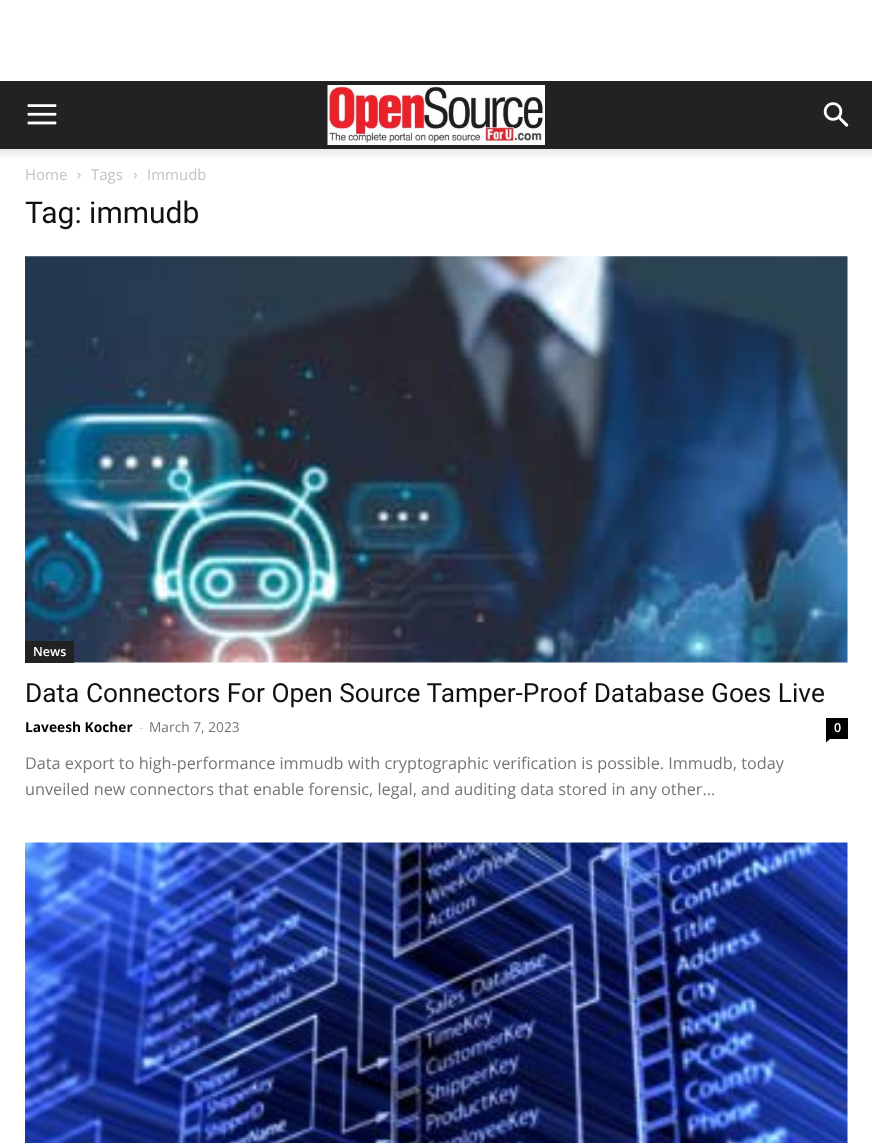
<svg xmlns="http://www.w3.org/2000/svg" width="872" height="1143">
	<rect width="100%" height="100%" fill="#FFFFFF" />
	<rect x="0" y="81" width="872" height="68" fill="#222222" />
	<image x="27" y="104" width="30" height="21" href="assets/img1.png" />
	<image x="327" y="85" width="218" height="60" href="assets/img2.png" />
	<image x="823" y="102" width="26" height="25" href="assets/img3.png" />
	<image x="0" y="149" width="872" height="10" href="assets/img4.png" />
	<text x="25" y="180" font-family="Open Sans" font-size="15" fill="#C3C3C3">Home</text>
	<image x="77" y="173" width="4" height="6" href="assets/img5.png" />
	<text x="91" y="180" font-family="Open Sans" font-size="15" fill="#C3C3C3">Tags</text>
	<image x="133" y="172" width="4" height="7" href="assets/img6.png" />
	<text x="147" y="180" font-family="Open Sans" font-size="15" fill="#C3C3C3">Immudb</text>
	<text x="25" y="223" font-family="Roboto" font-size="30" fill="#111111">Tag: immudb</text>
	<image x="25" y="256" width="823" height="407" href="assets/img7.png" />
	<rect x="25" y="641" width="49" height="22" fill="#222222" />
	<text x="33" y="656" font-family="Open Sans" font-size="12.5" font-weight="600" fill="#FFFFFF">News</text>
	<text x="25" y="702" font-family="Roboto" font-size="26.25" fill="#111111">Data Connectors For Open Source Tamper-Proof Database Goes Live</text>
	<text x="25" y="732" font-family="Open Sans" font-size="13.75" font-weight="700" fill="#000000">Laveesh Kocher</text>
	<text x="139" y="732" font-family="Open Sans" font-size="13.75" fill="#CCCCCC">-</text>
	<text x="149" y="732" font-family="Open Sans" font-size="13.75" fill="#767676">March 7, 2023</text>
	<rect x="826" y="718" width="22" height="21" fill="#000000" />
	<text x="834" y="732" font-family="Open Sans" font-size="12.5" font-weight="600" fill="#FFFFFF">0</text>
	<path d="M826 739H830L826 742.5Z" fill="#000000" />
	<g font-family="Open Sans" font-size="16.25" fill="#767676">
		<text x="25" y="769">Data export to high-performance immudb with cryptographic verification is possible. Immudb, today</text>
		<text x="25" y="795">unveiled new connectors that enable forensic, legal, and auditing data stored in any other...</text>
	</g>
	<image x="25" y="842" width="823" height="301" href="assets/img8.png" />
</svg>
